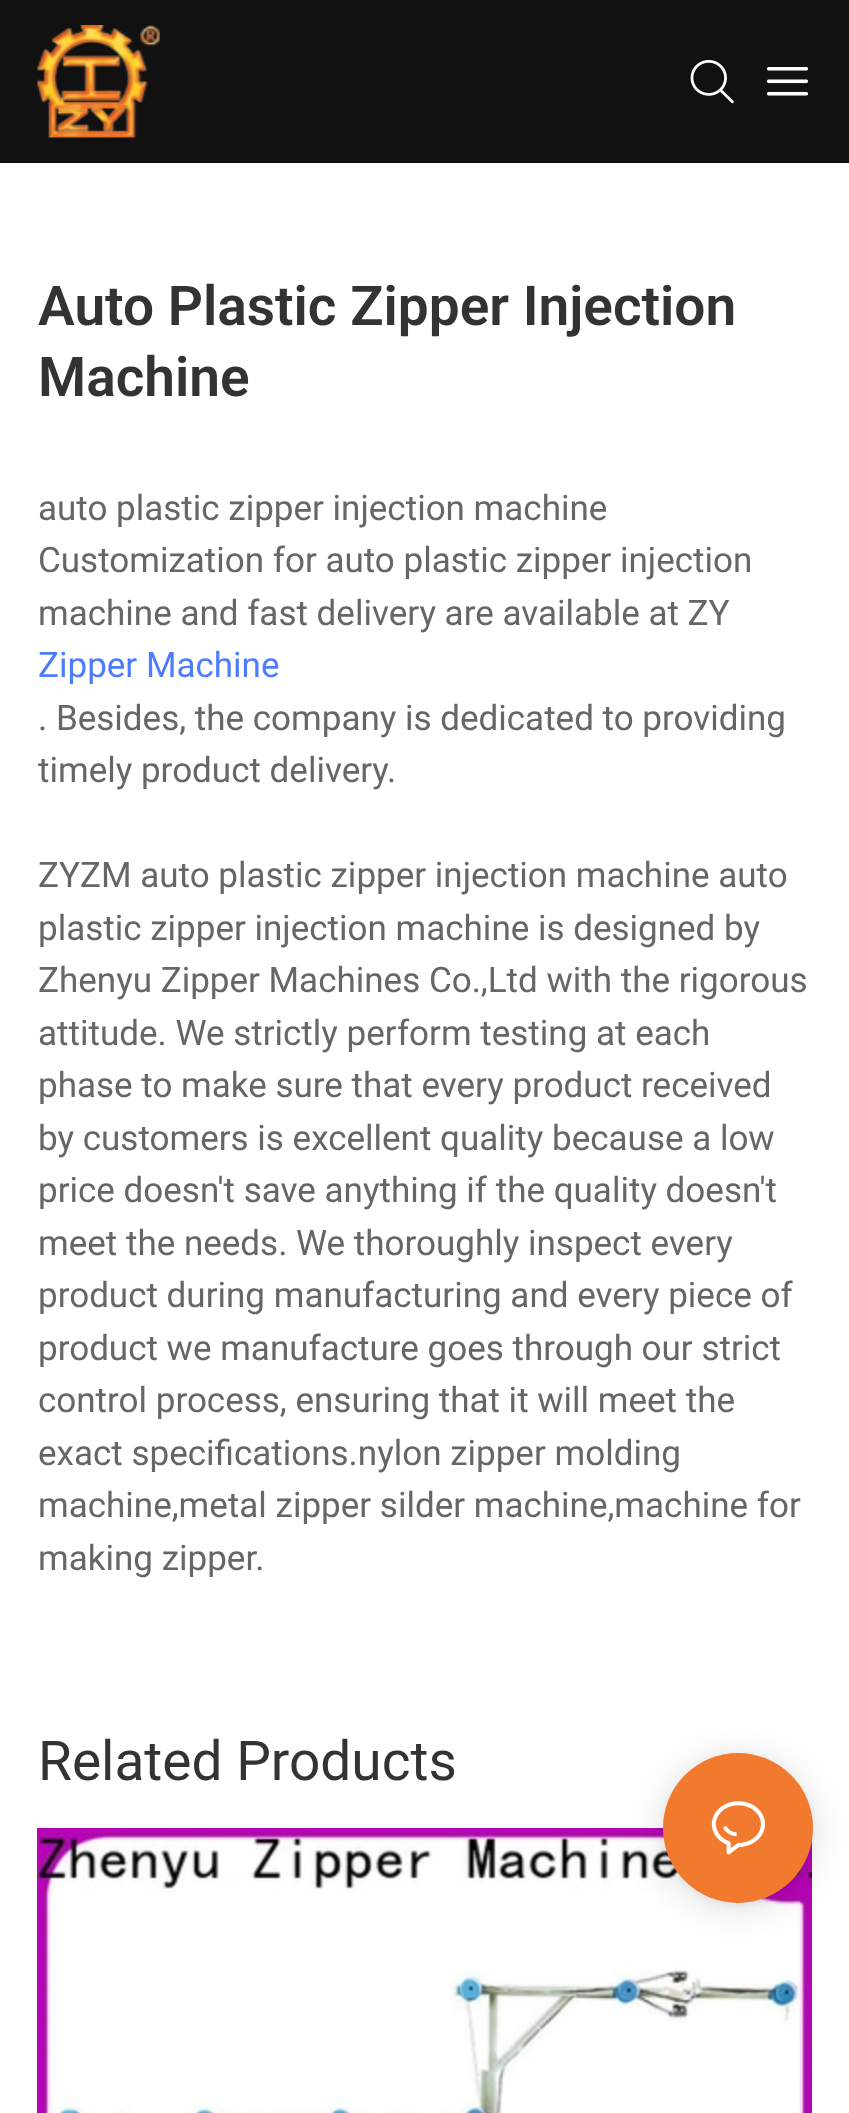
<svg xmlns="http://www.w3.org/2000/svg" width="849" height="2113">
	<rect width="100%" height="100%" fill="#FFFFFF" />
	<rect x="0" y="0" width="849" height="163" fill="#111111" />
	<image x="37" y="25" width="123" height="113" href="assets/img1.png" />
	<image x="690" y="60" width="44" height="44" href="assets/img2.png" />
	<image x="766" y="67" width="43" height="29" href="assets/img3.png" />
	<g font-family="Roboto" font-size="55" font-weight="600" fill="#333333">
		<text x="38" y="325">Auto Plastic Zipper Injection</text>
		<text x="38" y="396">Machine</text>
	</g>
	<g font-family="Roboto" font-size="35" fill="#666666">
		<text x="38" y="520">auto plastic zipper injection machine</text>
		<text x="38" y="572">Customization for auto plastic zipper injection</text>
		<text x="38" y="625">machine and fast delivery are available at ZY</text>
	</g>
	<text x="38" y="677" font-family="Roboto" font-size="35" fill="#4D7CFE">Zipper Machine</text>
	<g font-family="Roboto" font-size="35" fill="#666666">
		<text x="38" y="730">. Besides, the company is dedicated to providing</text>
		<text x="38" y="782">timely product delivery.</text>
		<text x="38" y="887">ZYZM auto plastic zipper injection machine auto</text>
		<text x="38" y="940">plastic zipper injection machine is designed by</text>
		<text x="38" y="992">Zhenyu Zipper Machines Co.,Ltd with the rigorous</text>
		<text x="38" y="1045">attitude. We strictly perform testing at each</text>
		<text x="38" y="1097">phase to make sure that every product received</text>
		<text x="38" y="1150">by customers is excellent quality because a low</text>
		<text x="38" y="1202">price doesn't save anything if the quality doesn't</text>
		<text x="38" y="1255">meet the needs. We thoroughly inspect every</text>
		<text x="38" y="1307">product during manufacturing and every piece of</text>
		<text x="38" y="1360">product we manufacture goes through our strict</text>
		<text x="38" y="1412">control process, ensuring that it will meet the</text>
		<text x="38" y="1465">exact specifications.nylon zipper molding</text>
		<text x="38" y="1517">machine,metal zipper silder machine,machine for</text>
		<text x="38" y="1570">making zipper.</text>
	</g>
	<text x="38" y="1780" font-family="Roboto" font-size="55" fill="#333333">Related Products</text>
	<image x="37" y="1828" width="775" height="285" href="assets/img4.png" />
	<rect x="663" y="1758" width="150" height="150" rx="75" fill="#000000" fill-opacity="0.12" filter="blur(20px)" />
	<rect x="663" y="1755" width="150" height="150" rx="75" fill="#000000" fill-opacity="0.06" filter="blur(5px)" />
	<circle cx="738" cy="1828" r="75" fill="#F27A2E" />
	<image x="711" y="1801" width="54" height="54" href="assets/img5.png" />
</svg>
